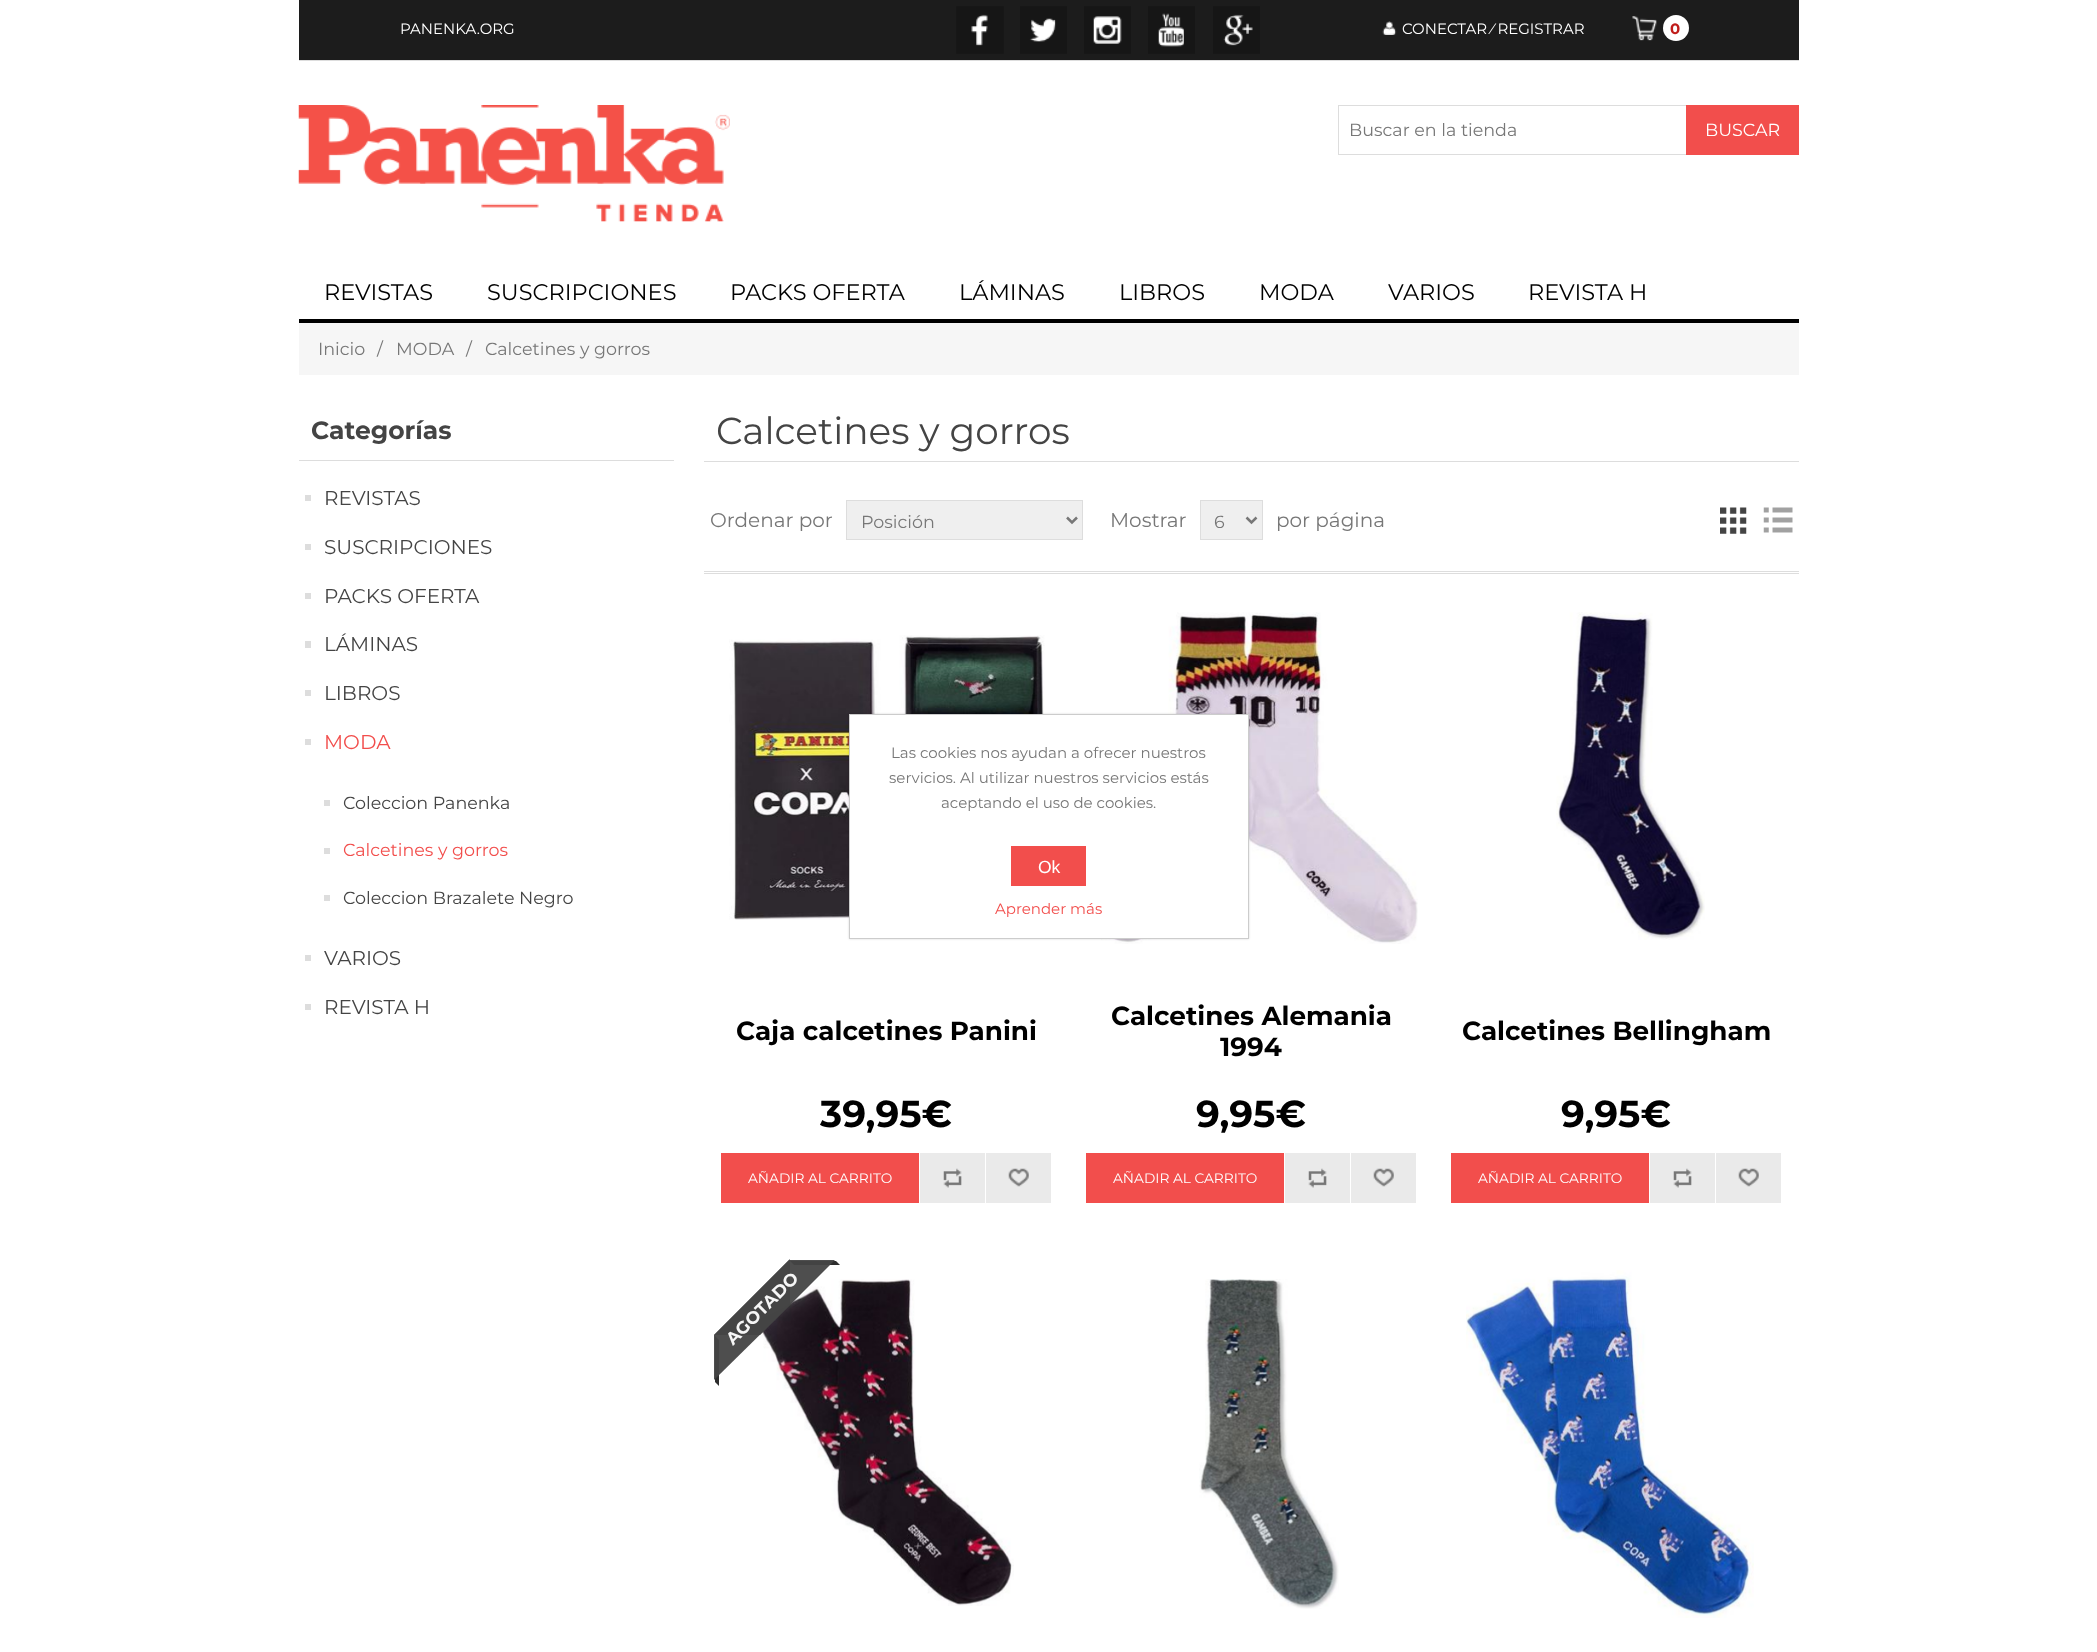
<svg xmlns="http://www.w3.org/2000/svg" width="2097" height="1652">
	<rect width="100%" height="100%" fill="#FFFFFF" />
	<rect x="299" y="60" width="1500" height="1" fill="#DDDDDD" />
	<rect x="299" y="0" width="1500" height="60" fill="#1C1C1C" />
	<text x="400" y="34" font-family="Montserrat" font-size="15" fill="#FFFFFF">PANENKA.ORG</text>
	<image x="956" y="6" width="48" height="48" href="assets/img1.png" />
	<image x="1020" y="6" width="47" height="48" href="assets/img2.png" />
	<image x="1084" y="6" width="47" height="48" href="assets/img3.png" />
	<image x="1148" y="6" width="47" height="48" href="assets/img4.png" />
	<image x="1213" y="6" width="47" height="48" href="assets/img5.png" />
	<image x="1382" y="21" width="15" height="14" href="assets/img6.png" />
	<text x="1402" y="34" font-family="Montserrat" font-size="15" fill="#FFFFFF">CONECTAR ⁄ REGISTRAR</text>
	<image x="1632" y="16" width="25" height="25" href="assets/img7.png" />
	<circle cx="1676" cy="28" r="13" fill="#FFFFFF" />
	<text x="1670" y="34" font-family="Montserrat" font-size="15" font-weight="700" fill="#C01C1A">0</text>
	<image x="298" y="105" width="432" height="117" href="assets/img8.png" />
	<rect x="1338.5" y="105.5" width="349" height="49" fill="none" stroke="#DDDDDD" />
	<text x="1349" y="136" font-family="Montserrat" font-size="17.5" fill="#777777">Buscar en la tienda</text>
	<rect x="1686" y="105" width="113" height="50" fill="#F24E4C" />
	<text x="1705" y="136" font-family="Montserrat" font-size="17.5" fill="#FFFFFF">BUSCAR</text>
	<rect x="299" y="319" width="1500" height="4" fill="#000000" />
	<g font-family="Montserrat" font-size="22.5" fill="#000000">
		<text x="324" y="300">REVISTAS</text>
		<text x="487" y="300">SUSCRIPCIONES</text>
		<text x="730" y="300">PACKS OFERTA</text>
		<text x="959" y="300">LÁMINAS</text>
		<text x="1119" y="300">LIBROS</text>
		<text x="1259" y="300">MODA</text>
		<text x="1388" y="300">VARIOS</text>
		<text x="1528" y="300">REVISTA H</text>
	</g>
	<rect x="299" y="323" width="1500" height="52" fill="#F6F6F6" />
	<g font-family="Montserrat" font-size="17.5" fill="#777777">
		<text x="318" y="355">Inicio</text>
		<text x="377" y="355">/</text>
		<text x="396" y="355">MODA</text>
		<text x="466" y="355">/</text>
		<text x="485" y="355">Calcetines y gorros</text>
	</g>
	<rect x="299" y="460" width="375" height="1" fill="#DDDDDD" />
	<text x="311" y="439" font-family="Montserrat" font-size="25" font-weight="700" fill="#444444">Categorías</text>
	<rect x="305" y="495" width="6" height="6" fill="#DDDDDD" />
	<text x="324" y="505" font-family="Montserrat" font-size="20" fill="#444444">REVISTAS</text>
	<rect x="305" y="544" width="6" height="6" fill="#DDDDDD" />
	<text x="324" y="554" font-family="Montserrat" font-size="20" fill="#444444">SUSCRIPCIONES</text>
	<rect x="305" y="593" width="6" height="6" fill="#DDDDDD" />
	<text x="324" y="603" font-family="Montserrat" font-size="20" fill="#444444">PACKS OFERTA</text>
	<rect x="305" y="641" width="6" height="7" fill="#DDDDDD" />
	<text x="324" y="651" font-family="Montserrat" font-size="20" fill="#444444">LÁMINAS</text>
	<rect x="305" y="690" width="6" height="6" fill="#DDDDDD" />
	<text x="324" y="700" font-family="Montserrat" font-size="20" fill="#444444">LIBROS</text>
	<rect x="305" y="739" width="6" height="6" fill="#DDDDDD" />
	<text x="324" y="749" font-family="Montserrat" font-size="20" fill="#F24E4C">MODA</text>
	<rect x="324" y="800" width="6" height="6" fill="#DDDDDD" />
	<text x="343" y="809" font-family="Montserrat" font-size="17.5" fill="#444444">Coleccion Panenka</text>
	<rect x="324" y="848" width="6" height="6" fill="#DDDDDD" />
	<text x="343" y="856" font-family="Montserrat" font-size="17.5" fill="#F24E4C">Calcetines y gorros</text>
	<rect x="324" y="895" width="6" height="6" fill="#DDDDDD" />
	<text x="343" y="904" font-family="Montserrat" font-size="17.5" fill="#444444">Coleccion Brazalete Negro</text>
	<rect x="305" y="955" width="6" height="6" fill="#DDDDDD" />
	<text x="324" y="965" font-family="Montserrat" font-size="20" fill="#444444">VARIOS</text>
	<rect x="305" y="1004" width="6" height="6" fill="#DDDDDD" />
	<text x="324" y="1014" font-family="Montserrat" font-size="20" fill="#444444">REVISTA H</text>
	<rect x="704" y="461" width="1095" height="1" fill="#DDDDDD" />
	<text x="716" y="444" font-family="Montserrat" font-size="37.5" fill="#444444">Calcetines y gorros</text>
	<rect x="704" y="571" width="1095" height="1" fill="#DDDDDD" />
	<text x="710" y="527" font-family="Montserrat" font-size="20" fill="#777777">Ordenar por</text>
	<rect x="846.5" y="500.5" width="236" height="39" fill="#EFEFEF" stroke="#DDDDDD" />
	<path d="M1067 517.5L1072 522.5L1077 517.5" fill="none" stroke="#777777" stroke-width="2.5" />
	<text x="861" y="528" font-family="Montserrat" font-size="17.5" fill="#777777">Posición</text>
	<text x="1110" y="527" font-family="Montserrat" font-size="20" fill="#777777">Mostrar</text>
	<rect x="1200.5" y="500.5" width="62" height="39" fill="#EFEFEF" stroke="#DDDDDD" />
	<path d="M1246.5 517.5L1251.5 522.5L1256.5 517.5" fill="none" stroke="#777777" stroke-width="2.5" />
	<text x="1214" y="528" font-family="Montserrat" font-size="17.5" fill="#777777">6</text>
	<text x="1276" y="527" font-family="Montserrat" font-size="20" fill="#777777">por página</text>
	<image x="1720" y="507" width="27" height="27" href="assets/img9.png" />
	<image x="1763" y="507" width="30" height="26" href="assets/img10.png" />
	<rect x="704" y="573" width="1095" height="1" fill="#DDDDDD" />
	<image x="729" y="635" width="316" height="285" href="assets/img11.png" />
	<text x="736" y="1040" font-family="Montserrat" font-size="26.25" font-weight="700" fill="#000000">Caja calcetines Panini</text>
	<text x="820" y="1127" font-family="Montserrat" font-size="37.5" font-weight="700" fill="#000000">39,95€</text>
	<rect x="721" y="1153" width="198" height="50" fill="#F24E4C" />
	<text x="748" y="1183" font-family="Montserrat" font-size="13.75" fill="#FFFFFF">AÑADIR AL CARRITO</text>
	<rect x="920" y="1153" width="65" height="50" fill="#EAEAEA" />
	<image x="943" y="1168" width="19" height="20" href="assets/img12.png" />
	<rect x="986" y="1153" width="65" height="50" fill="#EAEAEA" />
	<image x="1008" y="1168" width="21" height="19" href="assets/img13.png" />
	<image x="1087" y="612" width="331" height="332" href="assets/img14.png" />
	<g font-family="Montserrat" font-size="26.25" font-weight="700" fill="#000000">
		<text x="1111" y="1025">Calcetines Alemania</text>
		<text x="1220" y="1056">1994</text>
	</g>
	<text x="1196" y="1127" font-family="Montserrat" font-size="37.5" font-weight="700" fill="#000000">9,95€</text>
	<rect x="1086" y="1153" width="198" height="50" fill="#F24E4C" />
	<text x="1113" y="1183" font-family="Montserrat" font-size="13.75" fill="#FFFFFF">AÑADIR AL CARRITO</text>
	<rect x="1285" y="1153" width="65" height="50" fill="#EAEAEA" />
	<image x="1308" y="1168" width="19" height="20" href="assets/img12.png" />
	<rect x="1351" y="1153" width="65" height="50" fill="#EAEAEA" />
	<image x="1373" y="1168" width="21" height="19" href="assets/img15.png" />
	<image x="1556" y="612" width="149" height="328" href="assets/img16.png" />
	<text x="1462" y="1040" font-family="Montserrat" font-size="26.25" font-weight="700" fill="#000000">Calcetines Bellingham</text>
	<text x="1561" y="1127" font-family="Montserrat" font-size="37.5" font-weight="700" fill="#000000">9,95€</text>
	<rect x="1451" y="1153" width="198" height="50" fill="#F24E4C" />
	<text x="1478" y="1183" font-family="Montserrat" font-size="13.75" fill="#FFFFFF">AÑADIR AL CARRITO</text>
	<rect x="1650" y="1153" width="65" height="50" fill="#EAEAEA" />
	<image x="1673" y="1168" width="19" height="20" href="assets/img12.png" />
	<rect x="1716" y="1153" width="65" height="50" fill="#EAEAEA" />
	<image x="1738" y="1168" width="21" height="19" href="assets/img15.png" />
	<path d="M790 1261H836L840 1265H794Z" fill="#2D2D2D" />
	<path d="M715 1382V1336L719 1340V1386Z" fill="#2D2D2D" />
	<image x="756" y="1279" width="258" height="327" href="assets/img17.png" />
	<path d="M714 1335L790 1259V1305L714 1380Z" fill="#444444" fill-opacity="0.95" />
	<path d="M714 1335L789 1260H835L760 1335Z" fill="#444444" fill-opacity="0.95" />
	<text x="733" y="1346" transform="rotate(-45 733 1346)" font-family="Montserrat" font-size="17.5" font-weight="700" fill="#F6F6F6">AGOTADO</text>
	<image x="1199" y="1279" width="140" height="330" href="assets/img18.png" />
	<image x="1466" y="1270" width="288" height="348" href="assets/img19.png" />
	<rect x="849" y="714" width="400" height="225" fill="#000000" fill-opacity="0.15" filter="blur(1px)" />
	<rect x="849.5" y="714.5" width="399" height="224" fill="#FFFFFF" stroke="#CCCCCC" />
	<g font-family="Montserrat" font-size="15" fill="#777777">
		<text x="891" y="758">Las cookies nos ayudan a ofrecer nuestros</text>
		<text x="889" y="783">servicios. Al utilizar nuestros servicios estás</text>
		<text x="941" y="808">aceptando el uso de cookies.</text>
	</g>
	<rect x="1011" y="846" width="75" height="40" fill="#F24E4C" />
	<text x="1038" y="873" font-family="Liberation Sans" font-size="17.5" fill="#FFFFFF">Ok</text>
	<text x="995" y="914" font-family="Montserrat" font-size="15" fill="#F24E4C">Aprender más</text>
</svg>
